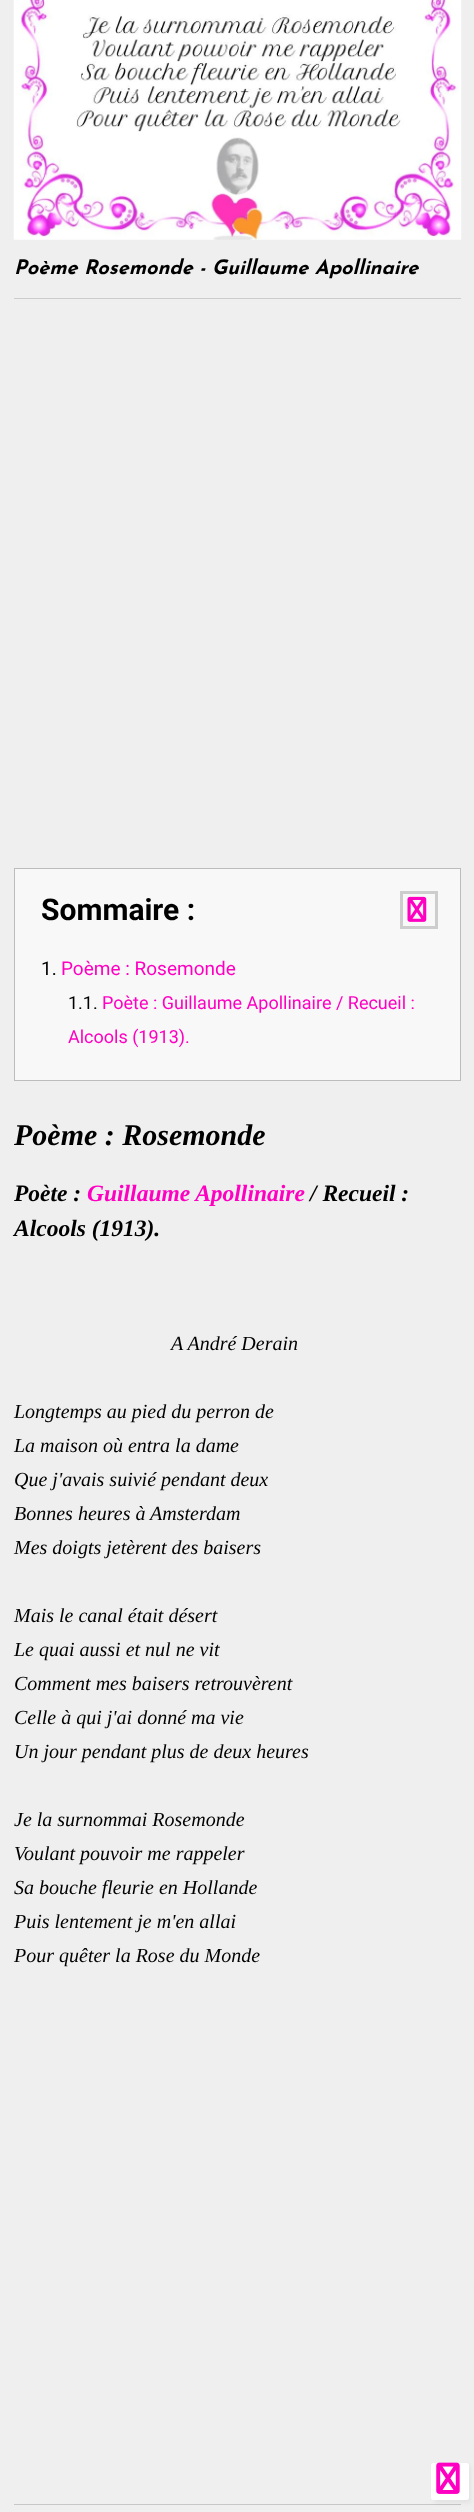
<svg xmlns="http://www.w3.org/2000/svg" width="474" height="2512">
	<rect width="100%" height="100%" fill="#EFEFEF" />
	<image x="13" y="0" width="449" height="240" href="assets/img1.png" />
	<rect x="14" y="298" width="447" height="1" fill="#CCCCCC" />
	<text x="14" y="274" font-family="Josefin Sans" font-size="20" font-weight="100" font-style="italic" fill="#000000">Poème Rosemonde - Guillaume Apollinaire</text>
	<rect x="14.5" y="868.5" width="446" height="212" fill="#F8F8F8" stroke="#BCBCBC" />
	<text x="41" y="920" font-family="Roboto" font-size="30" font-weight="700" fill="#000000">Sommaire :</text>
	<rect x="401.5" y="892.5" width="35" height="35" fill="none" stroke="#CDCDCD" stroke-width="3" />
	<image x="407" y="896" width="20" height="26" href="assets/img2.png" />
	<text x="41" y="975" font-family="Roboto" font-size="19" fill="#000000">1.</text>
	<text x="61" y="975" font-family="Roboto" font-size="19" fill="#FF00C2">Poème : Rosemonde</text>
	<text x="68" y="1009" font-family="Roboto" font-size="18" fill="#000000">1.1.</text>
	<g font-family="Roboto" font-size="18" fill="#FF00C2">
		<text x="102" y="1009">Poète : Guillaume Apollinaire / Recueil :</text>
		<text x="68" y="1043">Alcools (1913).</text>
	</g>
	<text x="14" y="1145" font-family="Liberation Serif" font-size="30" font-weight="700" font-style="italic" fill="#000000">Poème : Rosemonde</text>
	<text x="14" y="1201" font-family="Liberation Serif" font-size="23.5" font-weight="700" font-style="italic" fill="#000000">Poète :</text>
	<text x="87" y="1201" font-family="Liberation Serif" font-size="23.5" font-weight="700" font-style="italic" fill="#FF00C2">Guillaume Apollinaire</text>
	<g font-family="Liberation Serif" font-size="23.5" font-weight="700" font-style="italic" fill="#000000">
		<text x="310" y="1201">/ Recueil :</text>
		<text x="14" y="1236">Alcools (1913).</text>
	</g>
	<g font-family="Liberation Serif" font-size="20" font-style="italic" fill="#000000">
		<text x="171" y="1350">A André Derain</text>
		<text x="14" y="1418">Longtemps au pied du perron de</text>
		<text x="14" y="1452">La maison où entra la dame</text>
		<text x="14" y="1486">Que j'avais suivié pendant deux</text>
		<text x="14" y="1520">Bonnes heures à Amsterdam</text>
		<text x="14" y="1554">Mes doigts jetèrent des baisers</text>
		<text x="14" y="1622">Mais le canal était désert</text>
		<text x="14" y="1656">Le quai aussi et nul ne vit</text>
		<text x="14" y="1690">Comment mes baisers retrouvèrent</text>
		<text x="14" y="1724">Celle à qui j'ai donné ma vie</text>
		<text x="14" y="1758">Un jour pendant plus de deux heures</text>
		<text x="14" y="1826">Je la surnommai Rosemonde</text>
		<text x="14" y="1860">Voulant pouvoir me rappeler</text>
		<text x="14" y="1894">Sa bouche fleurie en Hollande</text>
		<text x="14" y="1928">Puis lentement je m'en allai</text>
		<text x="14" y="1962">Pour quêter la Rose du Monde</text>
	</g>
	<rect x="14" y="2504" width="447" height="1" fill="#C7C7C7" />
	<rect x="434" y="2465" width="37" height="38" rx="2.5" fill="#000000" fill-opacity="0.05" filter="blur(2px)" />
	<rect x="431" y="2463" width="38" height="37" rx="2.5" fill="#FFFFFF" />
	<image x="436" y="2462" width="24" height="32" href="assets/img3.png" />
</svg>
